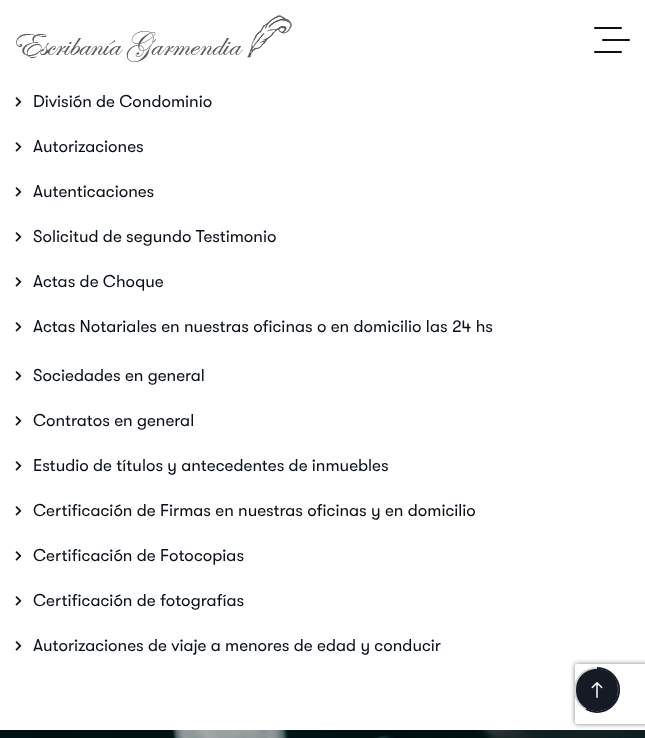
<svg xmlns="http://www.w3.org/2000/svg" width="645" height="738">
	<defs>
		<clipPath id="clip1"><path d="M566 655H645V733H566ZM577 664H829C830 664 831 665 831 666V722C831 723 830 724 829 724H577C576 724 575 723 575 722V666C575 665 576 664 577 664Z" clip-rule="evenodd" /></clipPath>
	</defs>
	<rect width="100%" height="100%" fill="#FFFFFF" />
	<image x="16" y="15" width="276" height="47" href="assets/img1.png" />
	<rect x="594" y="27" width="28" height="2" rx="1" fill="#0A1119" />
	<rect x="602" y="39" width="28" height="2" rx="1" fill="#0A1119" />
	<rect x="594" y="51" width="28" height="2" rx="1" fill="#0A1119" />
	<image x="15" y="97" width="7" height="10" href="assets/img2.png" />
	<text x="33" y="107" font-family="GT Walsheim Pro" font-size="17" fill="#0A1119">División de Condominio</text>
	<image x="15" y="142" width="7" height="10" href="assets/img2.png" />
	<text x="33" y="152" font-family="GT Walsheim Pro" font-size="17" fill="#0A1119">Autorizaciones</text>
	<image x="15" y="187" width="7" height="10" href="assets/img2.png" />
	<text x="33" y="197" font-family="GT Walsheim Pro" font-size="17" fill="#0A1119">Autenticaciones</text>
	<image x="15" y="232" width="7" height="10" href="assets/img2.png" />
	<text x="33" y="242" font-family="GT Walsheim Pro" font-size="17" fill="#0A1119">Solicitud de segundo Testimonio</text>
	<image x="15" y="277" width="7" height="10" href="assets/img2.png" />
	<text x="33" y="287" font-family="GT Walsheim Pro" font-size="17" fill="#0A1119">Actas de Choque</text>
	<image x="15" y="322" width="7" height="10" href="assets/img2.png" />
	<text x="33" y="332" font-family="GT Walsheim Pro" font-size="17" fill="#0A1119">Actas Notariales en nuestras oficinas o en domicilio las 24 hs</text>
	<image x="15" y="371" width="7" height="10" href="assets/img2.png" />
	<text x="33" y="381" font-family="GT Walsheim Pro" font-size="17" fill="#0A1119">Sociedades en general</text>
	<image x="15" y="416" width="7" height="10" href="assets/img2.png" />
	<text x="33" y="426" font-family="GT Walsheim Pro" font-size="17" fill="#0A1119">Contratos en general</text>
	<image x="15" y="461" width="7" height="10" href="assets/img2.png" />
	<text x="33" y="471" font-family="GT Walsheim Pro" font-size="17" fill="#0A1119">Estudio de títulos y antecedentes de inmuebles</text>
	<image x="15" y="506" width="7" height="10" href="assets/img2.png" />
	<text x="33" y="516" font-family="GT Walsheim Pro" font-size="17" fill="#0A1119">Certificación de Firmas en nuestras oficinas y en domicilio</text>
	<image x="15" y="551" width="7" height="10" href="assets/img2.png" />
	<text x="33" y="561" font-family="GT Walsheim Pro" font-size="17" fill="#0A1119">Certificación de Fotocopias</text>
	<image x="15" y="596" width="7" height="10" href="assets/img2.png" />
	<text x="33" y="606" font-family="GT Walsheim Pro" font-size="17" fill="#0A1119">Certificación de fotografías</text>
	<image x="15" y="641" width="7" height="10" href="assets/img2.png" />
	<text x="33" y="651" font-family="GT Walsheim Pro" font-size="17" fill="#0A1119">Autorizaciones de viaje a menores de edad y conducir</text>
	<image x="0" y="730" width="645" height="8" href="assets/img3.png" />
	<g clip-path="url(#clip1)">
		<rect x="575" y="664" width="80" height="60" rx="2" fill="#808080" filter="blur(2.5px)" />
	</g>
	<path d="M575 690C575 661 619 661 619 690C619 719 575 719 575 690Z" fill="none" stroke="#D4D4D4" stroke-width="2" />
	<path d="M576 690C576 662 618 662 618 690C618 718 576 718 576 690Z" fill="#151A25" />
	<path d="M597 668C603 668 608.5 670.5 612.5 674.5C631 693 607.5 721.5 586 709" fill="none" stroke="#121C27" stroke-width="1.8" />
	<image x="591" y="682" width="12" height="16" href="assets/img4.png" />
</svg>
